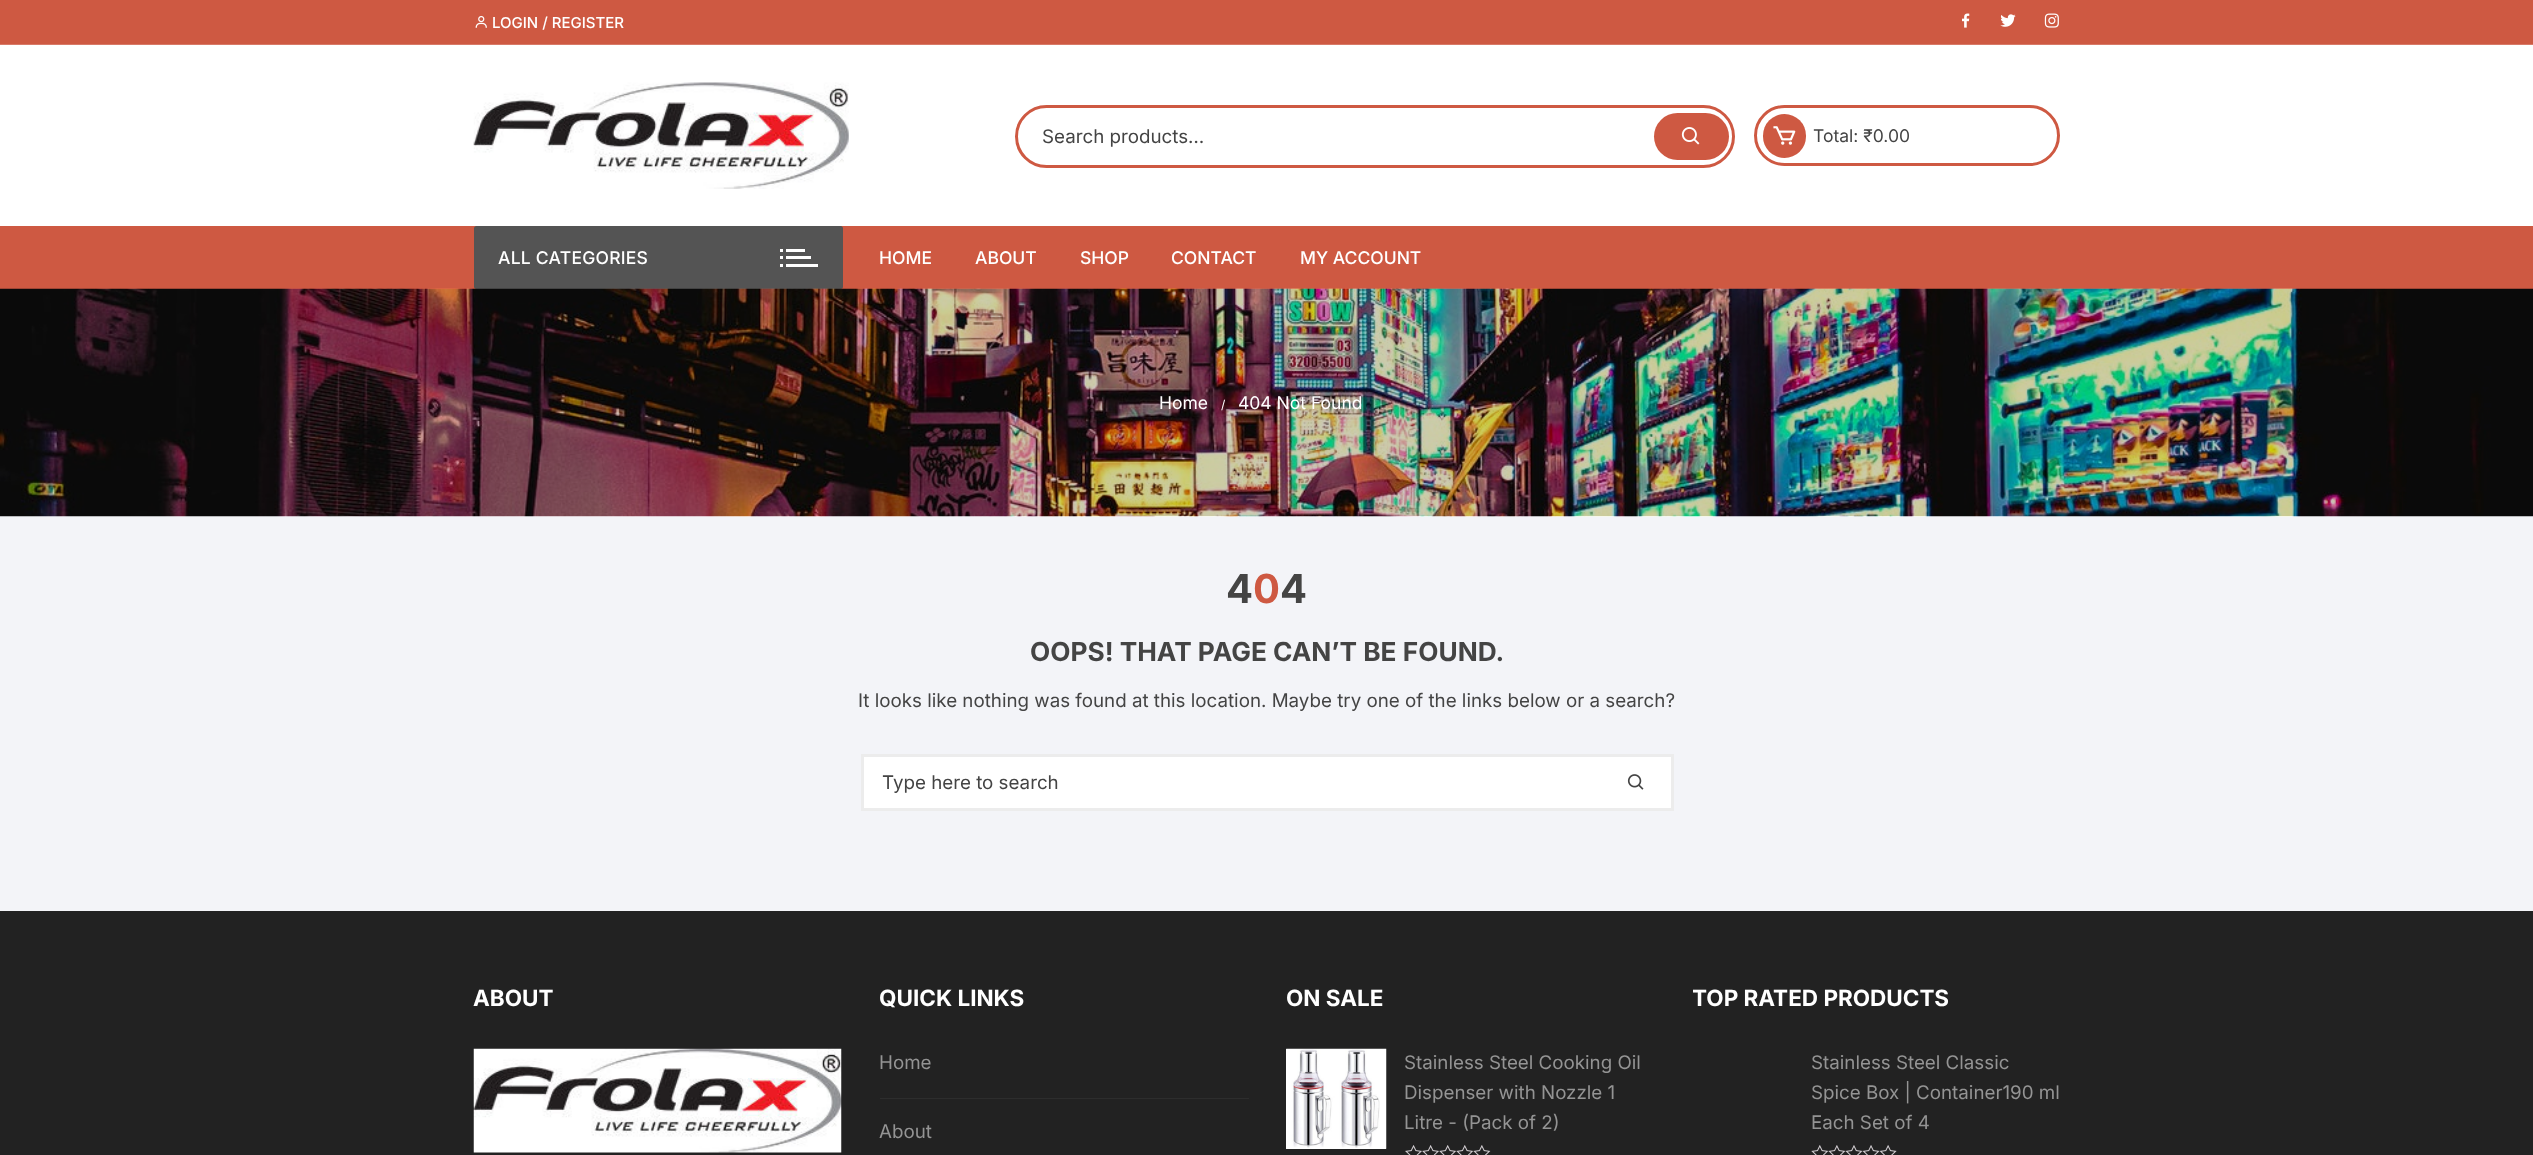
<svg xmlns="http://www.w3.org/2000/svg" width="2533" height="1155">
	<defs>
		<clipPath id="clip1"><rect x="1693" y="986" width="368" height="25" /></clipPath>
	</defs>
	<rect width="100%" height="100%" fill="#F3F4F8" />
	<rect x="0" y="45" width="2533" height="181" fill="#FFFFFF" />
	<rect x="0" y="0" width="2533" height="44" fill="#CE5942" />
	<rect x="0" y="44" width="2533" height="1" fill="#D87A68" />
	<image x="475" y="15" width="12" height="13" href="assets/img1.png" />
	<text x="492" y="28" font-family="Inter" font-size="15" font-weight="500" fill="#FFFFFF">LOGIN / REGISTER</text>
	<image x="1962" y="13" width="8" height="15" href="assets/img2.png" />
	<image x="2000" y="14" width="16" height="13" href="assets/img3.png" />
	<image x="2044" y="13" width="15" height="15" href="assets/img4.png" />
	<image x="473" y="82" width="376" height="107" href="assets/img5.png" />
	<rect x="1016.5" y="106.5" width="717" height="60" rx="30" fill="none" stroke="#CE5942" stroke-width="3" />
	<text x="1042" y="143" font-family="Inter" font-size="18.75" fill="#444444">Search products…</text>
	<rect x="1654" y="113" width="75" height="47" rx="23.5" fill="#CE5942" />
	<image x="1681" y="127" width="19" height="18" href="assets/img6.png" />
	<rect x="1755.5" y="106.5" width="303" height="58" rx="29" fill="none" stroke="#CE5942" stroke-width="3" />
	<rect x="1763" y="114" width="43" height="44" rx="21.5" fill="#CE5942" />
	<image x="1773" y="126" width="23" height="19" href="assets/img7.png" />
	<text x="1813" y="142" font-family="Inter" font-size="17.5" fill="#444444">Total: ₹0.00</text>
	<rect x="0" y="226" width="2533" height="63" fill="#CE5942" />
	<rect x="474" y="226" width="369" height="63" rx="2.5" fill="#545454" />
	<text x="498" y="264" font-family="Inter" font-size="17.5" font-weight="500" letter-spacing="0.25" fill="#FFFFFF">ALL CATEGORIES</text>
	<rect x="786" y="249" width="19" height="3" fill="#FFFFFF" />
	<rect x="780" y="249" width="3" height="3" fill="#FFFFFF" />
	<rect x="786" y="256" width="25" height="3" fill="#FFFFFF" />
	<rect x="780" y="256" width="3" height="3" fill="#FFFFFF" />
	<rect x="786" y="264" width="32" height="3" fill="#FFFFFF" />
	<rect x="780" y="264" width="3" height="3" fill="#FFFFFF" />
	<g font-family="Inter" font-size="17.5" font-weight="500" fill="#FFFFFF">
		<text x="879" y="264">HOME</text>
		<text x="975" y="264">ABOUT</text>
		<text x="1080" y="264">SHOP</text>
		<text x="1171" y="264">CONTACT</text>
		<text x="1300" y="264">MY ACCOUNT</text>
	</g>
	<image x="0" y="288" width="2533" height="229" href="assets/img8.png" />
	<text x="1159" y="409" font-family="Inter" font-size="17.5" fill="#FFFFFF">Home</text>
	<text x="1221" y="409" font-family="Inter" font-size="12" fill="#FFFFFF">/</text>
	<text x="1238" y="409" font-family="Inter" font-size="17.5" fill="#FFFFFF">404 Not Found</text>
	<text x="1226" y="603" font-family="Inter" font-size="40" font-weight="700" fill="#444444">4</text>
	<text x="1253" y="603" font-family="Inter" font-size="40" font-weight="700" fill="#CE5942">0</text>
	<text x="1280" y="603" font-family="Inter" font-size="40" font-weight="700" fill="#444444">4</text>
	<text x="1030" y="661" font-family="Inter" font-size="26.25" font-weight="700" fill="#444444">OOPS! THAT PAGE CAN’T BE FOUND.</text>
	<text x="858" y="707" font-family="Inter" font-size="18.75" fill="#444444">It looks like nothing was found at this location. Maybe try one of the links below or a search?</text>
	<rect x="862.5" y="755.5" width="810" height="54" fill="#FFFFFF" stroke="#ECECEC" stroke-width="3" />
	<text x="882" y="789" font-family="Inter" font-size="18.75" fill="#444444">Type here to search</text>
	<image x="1627" y="774" width="17" height="16" href="assets/img9.png" />
	<rect x="0" y="911" width="2533" height="244" fill="#222222" />
	<text x="473" y="1006" font-family="Inter" font-size="22.5" font-weight="700" fill="#FFFFFF">ABOUT</text>
	<image x="473" y="1048" width="369" height="105" href="assets/img10.png" />
	<text x="879" y="1006" font-family="Inter" font-size="22.5" font-weight="700" fill="#FFFFFF">QUICK LINKS</text>
	<rect x="880" y="1098" width="369" height="1" fill="#2D2D2D" />
	<g font-family="Inter" font-size="18.75" fill="#949494">
		<text x="879" y="1069">Home</text>
		<text x="879" y="1138">About</text>
	</g>
	<text x="1286" y="1006" font-family="Inter" font-size="22.5" font-weight="700" fill="#FFFFFF">ON SALE</text>
	<rect x="1286" y="1049" width="100" height="100" fill="#FFFFFF" />
	<image x="1286" y="1048" width="101" height="101" href="assets/img11.png" />
	<g font-family="Inter" font-size="18.75" fill="#949494">
		<text x="1404" y="1069">Stainless Steel Cooking Oil</text>
		<text x="1404" y="1099">Dispenser with Nozzle 1</text>
		<text x="1404" y="1129">Litre - (Pack of 2)</text>
	</g>
	<image x="1405" y="1145" width="86" height="10" href="assets/img12.png" />
	<g clip-path="url(#clip1)">
		<text x="1692" y="1006" font-family="Inter" font-size="22.5" font-weight="700" fill="#FFFFFF">TOP RATED PRODUCTS</text>
	</g>
	<g font-family="Inter" font-size="18.75" fill="#949494">
		<text x="1811" y="1069">Stainless Steel Classic</text>
		<text x="1811" y="1099">Spice Box | Container190 ml</text>
		<text x="1811" y="1129">Each Set of 4</text>
	</g>
	<image x="1811" y="1145" width="86" height="10" href="assets/img13.png" />
</svg>
